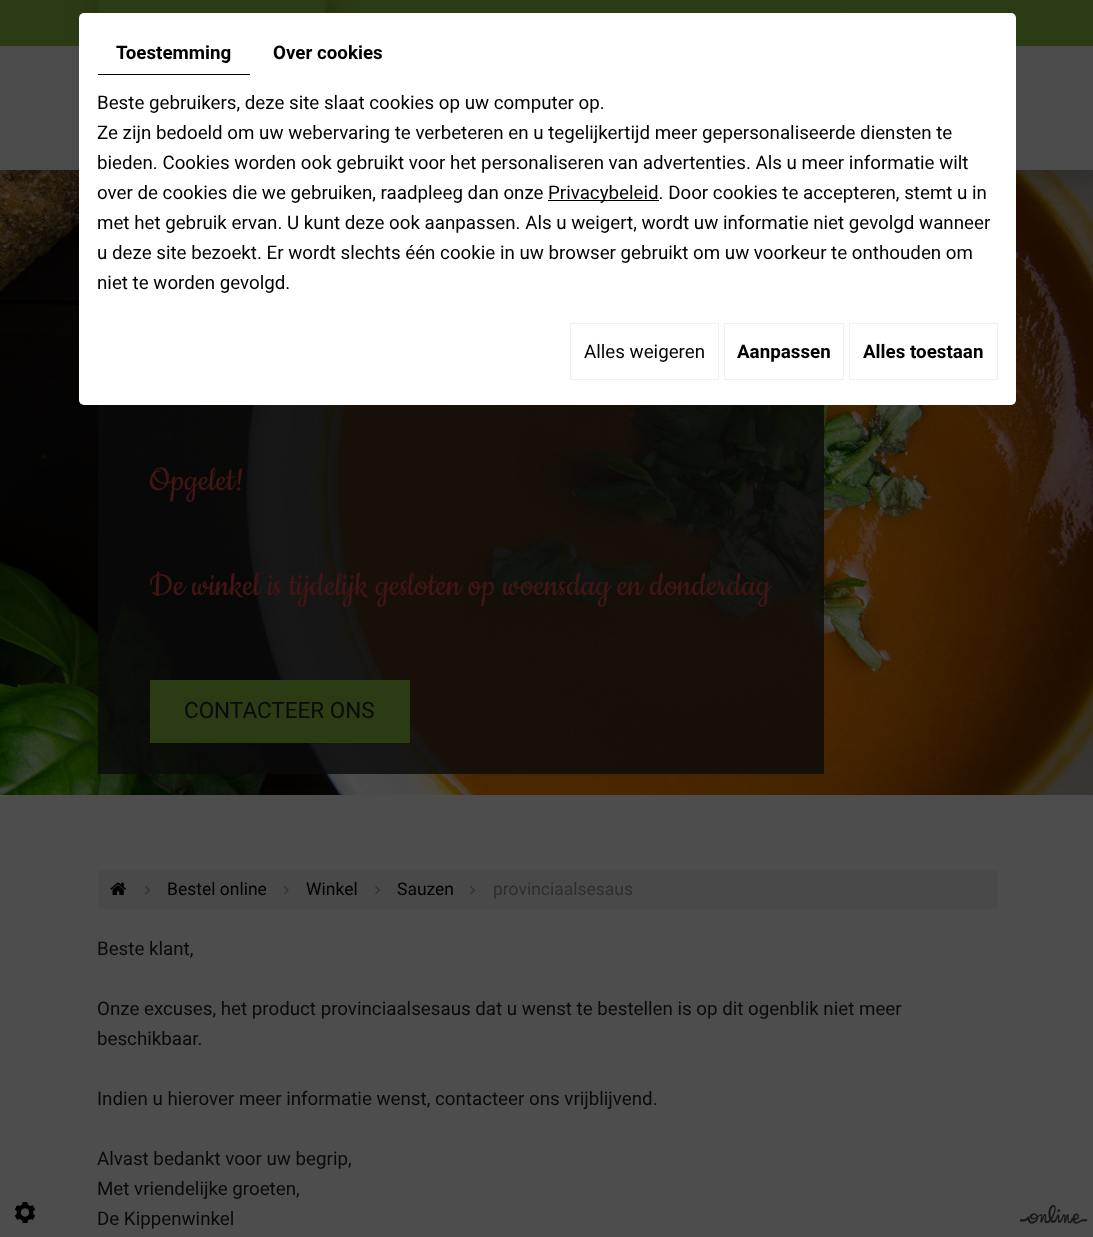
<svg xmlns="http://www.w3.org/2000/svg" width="1093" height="1237">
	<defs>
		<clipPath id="clip1"><path d="M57 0H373V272H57ZM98 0H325V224H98Z" clip-rule="evenodd" /></clipPath>
	</defs>
	<rect width="100%" height="100%" fill="#4D4D4D" />
	<image x="0" y="170" width="1093" height="625" href="assets/img3.png" />
	<rect x="-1" y="-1" width="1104" height="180" fill="#000000" fill-opacity="0.2" filter="blur(12.5px)" />
	<rect x="0" y="0" width="1093" height="46" fill="#2B3B13" />
	<rect x="0" y="46" width="1093" height="124" fill="#4B4B4B" />
	<g clip-path="url(#clip1)">
		<rect x="96" y="-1" width="238" height="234" fill="#000000" fill-opacity="0.2" filter="blur(12.5px)" />
	</g>
	<rect x="79" y="13" width="937" height="392" rx="5" fill="#FFFFFF" />
	<rect x="98" y="74" width="152" height="1" fill="#000000" />
	<g font-family="Roboto" font-size="18.75" font-weight="700" fill="#000000">
		<text x="116" y="59">Toestemming</text>
		<text x="273" y="59">Over cookies</text>
	</g>
	<g font-family="Roboto" font-size="18.75" fill="#000000">
		<text x="97" y="109">Beste gebruikers, deze site slaat cookies op uw computer op.</text>
		<text x="97" y="139">Ze zijn bedoeld om uw webervaring te verbeteren en u tegelijkertijd meer gepersonaliseerde diensten te</text>
		<text x="97" y="169">bieden. Cookies worden ook gebruikt voor het personaliseren van advertenties. Als u meer informatie wilt</text>
		<text x="97" y="199">over de cookies die we gebruiken, raadpleeg dan onze</text>
	</g>
	<rect x="548" y="200" width="111" height="1" fill="#000000" />
	<g font-family="Roboto" font-size="18.75" fill="#000000">
		<text x="548" y="199">Privacybeleid. Door cookies te accepteren, stemt u in</text>
		<text x="97" y="229">met het gebruik ervan. U kunt deze ook aanpassen. Als u weigert, wordt uw informatie niet gevolgd wanneer</text>
		<text x="97" y="259">u deze site bezoekt. Er wordt slechts één cookie in uw browser gebruikt om uw voorkeur te onthouden om</text>
		<text x="97" y="289">niet te worden gevolgd.</text>
	</g>
	<rect x="570.5" y="323.5" width="148" height="56" fill="none" stroke="#F0F0F0" />
	<text x="584" y="358" font-family="Roboto" font-size="18.75" fill="#000000">Alles weigeren</text>
	<rect x="724.5" y="323.5" width="119" height="56" fill="none" stroke="#F0F0F0" />
	<text x="737" y="358" font-family="Roboto" font-size="18.75" font-weight="700" fill="#000000">Aanpassen</text>
	<rect x="849.5" y="323.5" width="148" height="56" fill="none" stroke="#F0F0F0" />
	<text x="863" y="358" font-family="Roboto" font-size="18.75" font-weight="700" fill="#000000">Alles toestaan</text>
	<image x="14" y="1202" width="22" height="21" href="assets/img1.png" />
	<image x="839" y="12" width="4" height="1" href="assets/img2.png" />
	<rect x="98" y="405" width="726" height="369" fill="#0A0A0A" fill-opacity="0.8" />
	<g font-family="Cookie" font-size="37.5" fill="#3F1614">
		<text x="149" y="490">Opgelet!</text>
		<text x="149" y="595">De winkel is tijdelijk gesloten op woensdag en donderdag</text>
	</g>
	<rect x="150" y="680" width="260" height="63" fill="#2B3B13" />
	<text x="184" y="718" font-family="Roboto" font-size="22.5" fill="#0A0A0A">CONTACTEER ONS</text>
	<rect x="98" y="870" width="900" height="39" fill="#494949" />
	<image x="110" y="882" width="16" height="13" href="assets/img4.png" />
	<image x="145" y="886" width="5" height="9" href="assets/img5.png" />
	<text x="167" y="895" font-family="Roboto" font-size="17.5" fill="#000000">Bestel online</text>
	<image x="284" y="886" width="5" height="9" href="assets/img6.png" />
	<text x="306" y="895" font-family="Roboto" font-size="17.5" fill="#000000">Winkel</text>
	<image x="375" y="886" width="5" height="9" href="assets/img5.png" />
	<text x="397" y="895" font-family="Roboto" font-size="17.5" fill="#000000">Sauzen</text>
	<image x="470" y="886" width="5" height="9" href="assets/img5.png" />
	<text x="493" y="895" font-family="Roboto" font-size="17.5" fill="#2E2E2E">provinciaalsesaus</text>
	<g font-family="Roboto" font-size="18.75" fill="#0A0A0A">
		<text x="97" y="955">Beste klant,</text>
		<text x="97" y="1015">Onze excuses, het product provinciaalsesaus dat u wenst te bestellen is op dit ogenblik niet meer</text>
		<text x="97" y="1045">beschikbaar.</text>
		<text x="97" y="1105">Indien u hierover meer informatie wenst, contacteer ons vrijblijvend.</text>
		<text x="97" y="1165">Alvast bedankt voor uw begrip,</text>
		<text x="97" y="1195">Met vriendelijke groeten,</text>
		<text x="97" y="1225">De Kippenwinkel</text>
	</g>
	<image x="1020" y="1204" width="68" height="20" href="assets/img7.png" />
</svg>
